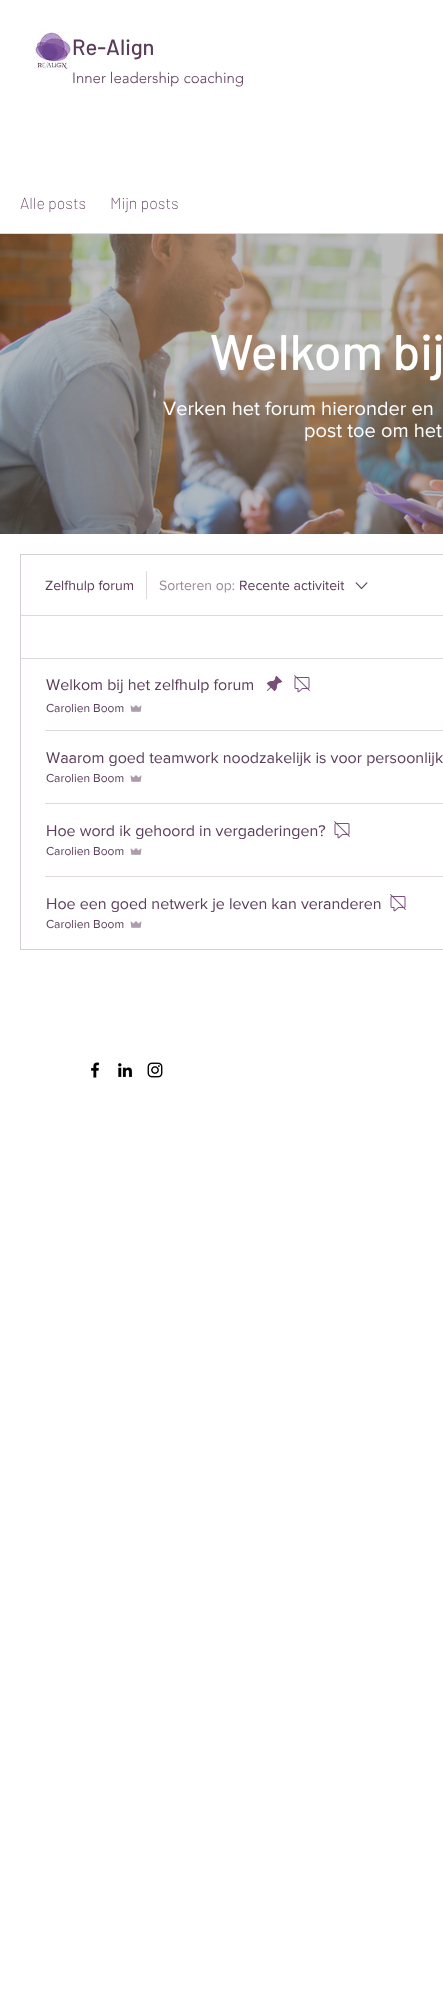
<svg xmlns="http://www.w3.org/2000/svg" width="443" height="1991">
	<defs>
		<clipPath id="clip1"><rect x="46" y="750" width="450" height="16" /></clipPath>
		<clipPath id="clip2"><rect x="46" y="823" width="280" height="16" /></clipPath>
		<clipPath id="clip3"><rect x="46" y="896" width="336" height="16" /></clipPath>
	</defs>
	<rect width="100%" height="100%" fill="#FFFFFF" />
	<image x="31" y="30" width="40" height="40" href="assets/img1.png" />
	<text x="72" y="55" font-family="Barlow" font-size="22" font-weight="500" fill="#5A3C5A">Re-Align</text>
	<text x="72" y="83" font-family="'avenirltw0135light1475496'" font-size="15" font-weight="300" fill="#5A3C5A">Inner leadership coaching</text>
	<rect x="0" y="233" width="443" height="1" fill="#DED8DE" />
	<g font-family="Barlow" font-size="16" font-weight="200" fill="#5A3C5A">
		<text x="20" y="209">Alle posts</text>
		<text x="110" y="209">Mijn posts</text>
	</g>
	<image x="0" y="234" width="443" height="300" href="assets/img2.png" />
	<text x="210" y="370" font-family="Barlow" font-size="50" font-weight="500" fill="#FFFFFF">Welkom bij</text>
	<g font-family="'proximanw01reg'" font-size="20" fill="#FFFFFF">
		<text x="163" y="415">Verken het forum hieronder en</text>
		<text x="304" y="437">post toe om het</text>
	</g>
	<rect x="20.5" y="554.5" width="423" height="395" fill="none" stroke="#D6CED6" />
	<text x="45" y="590" font-family="'proximanw01reg'" font-size="14" fill="#5A3C5A">Zelfhulp forum</text>
	<rect x="146" y="571" width="1" height="28" fill="#DED8DE" />
	<text x="159" y="590" font-family="'proximanw01reg'" font-size="14" fill="#9C8A9C">Sorteren op:</text>
	<text x="239" y="590" font-family="'proximanw01reg'" font-size="14" fill="#5A3C5A">Recente activiteit</text>
	<image x="355" y="582" width="13" height="8" href="assets/img3.png" />
	<rect x="21" y="615" width="422" height="1" fill="#DED8DE" />
	<rect x="21" y="658" width="422" height="1" fill="#DED8DE" />
	<text x="46" y="690" font-family="'proximanw01reg'" font-size="16" fill="#5A3C5A">Welkom bij het zelfhulp forum</text>
	<image x="266" y="675" width="17" height="17" href="assets/img4.png" />
	<image x="294" y="675" width="16" height="18" href="assets/img5.png" />
	<text x="46" y="712" font-family="'proximanw01reg'" font-size="12" fill="#5A3C5A">Carolien Boom</text>
	<image x="130" y="705" width="12" height="7" href="assets/img6.png" />
	<rect x="45" y="730" width="398" height="1" fill="#DED8DE" />
	<g clip-path="url(#clip1)">
		<text x="46" y="763" font-family="'proximanw01reg'" font-size="16" fill="#5A3C5A">Waarom goed teamwork noodzakelijk is voor persoonlijk</text>
	</g>
	<text x="46" y="782" font-family="'proximanw01reg'" font-size="12" fill="#5A3C5A">Carolien Boom</text>
	<image x="130" y="775" width="12" height="7" href="assets/img6.png" />
	<rect x="45" y="803" width="398" height="1" fill="#DED8DE" />
	<g clip-path="url(#clip2)">
		<text x="46" y="836" font-family="'proximanw01reg'" font-size="16" fill="#5A3C5A">Hoe word ik gehoord in vergaderingen?</text>
	</g>
	<image x="334" y="821" width="16" height="18" href="assets/img5.png" />
	<text x="46" y="855" font-family="'proximanw01reg'" font-size="12" fill="#5A3C5A">Carolien Boom</text>
	<image x="130" y="848" width="12" height="7" href="assets/img6.png" />
	<rect x="45" y="876" width="398" height="1" fill="#DED8DE" />
	<g clip-path="url(#clip3)">
		<text x="46" y="909" font-family="'proximanw01reg'" font-size="16" fill="#5A3C5A">Hoe een goed netwerk je leven kan veranderen</text>
	</g>
	<image x="390" y="894" width="16" height="18" href="assets/img5.png" />
	<text x="46" y="928" font-family="'proximanw01reg'" font-size="12" fill="#5A3C5A">Carolien Boom</text>
	<image x="130" y="921" width="12" height="7" href="assets/img6.png" />
	<image x="91" y="1062" width="9" height="16" href="assets/img7.png" />
	<image x="118" y="1063" width="15" height="15" href="assets/img8.png" />
	<image x="147" y="1062" width="16" height="16" href="assets/img9.png" />
</svg>
